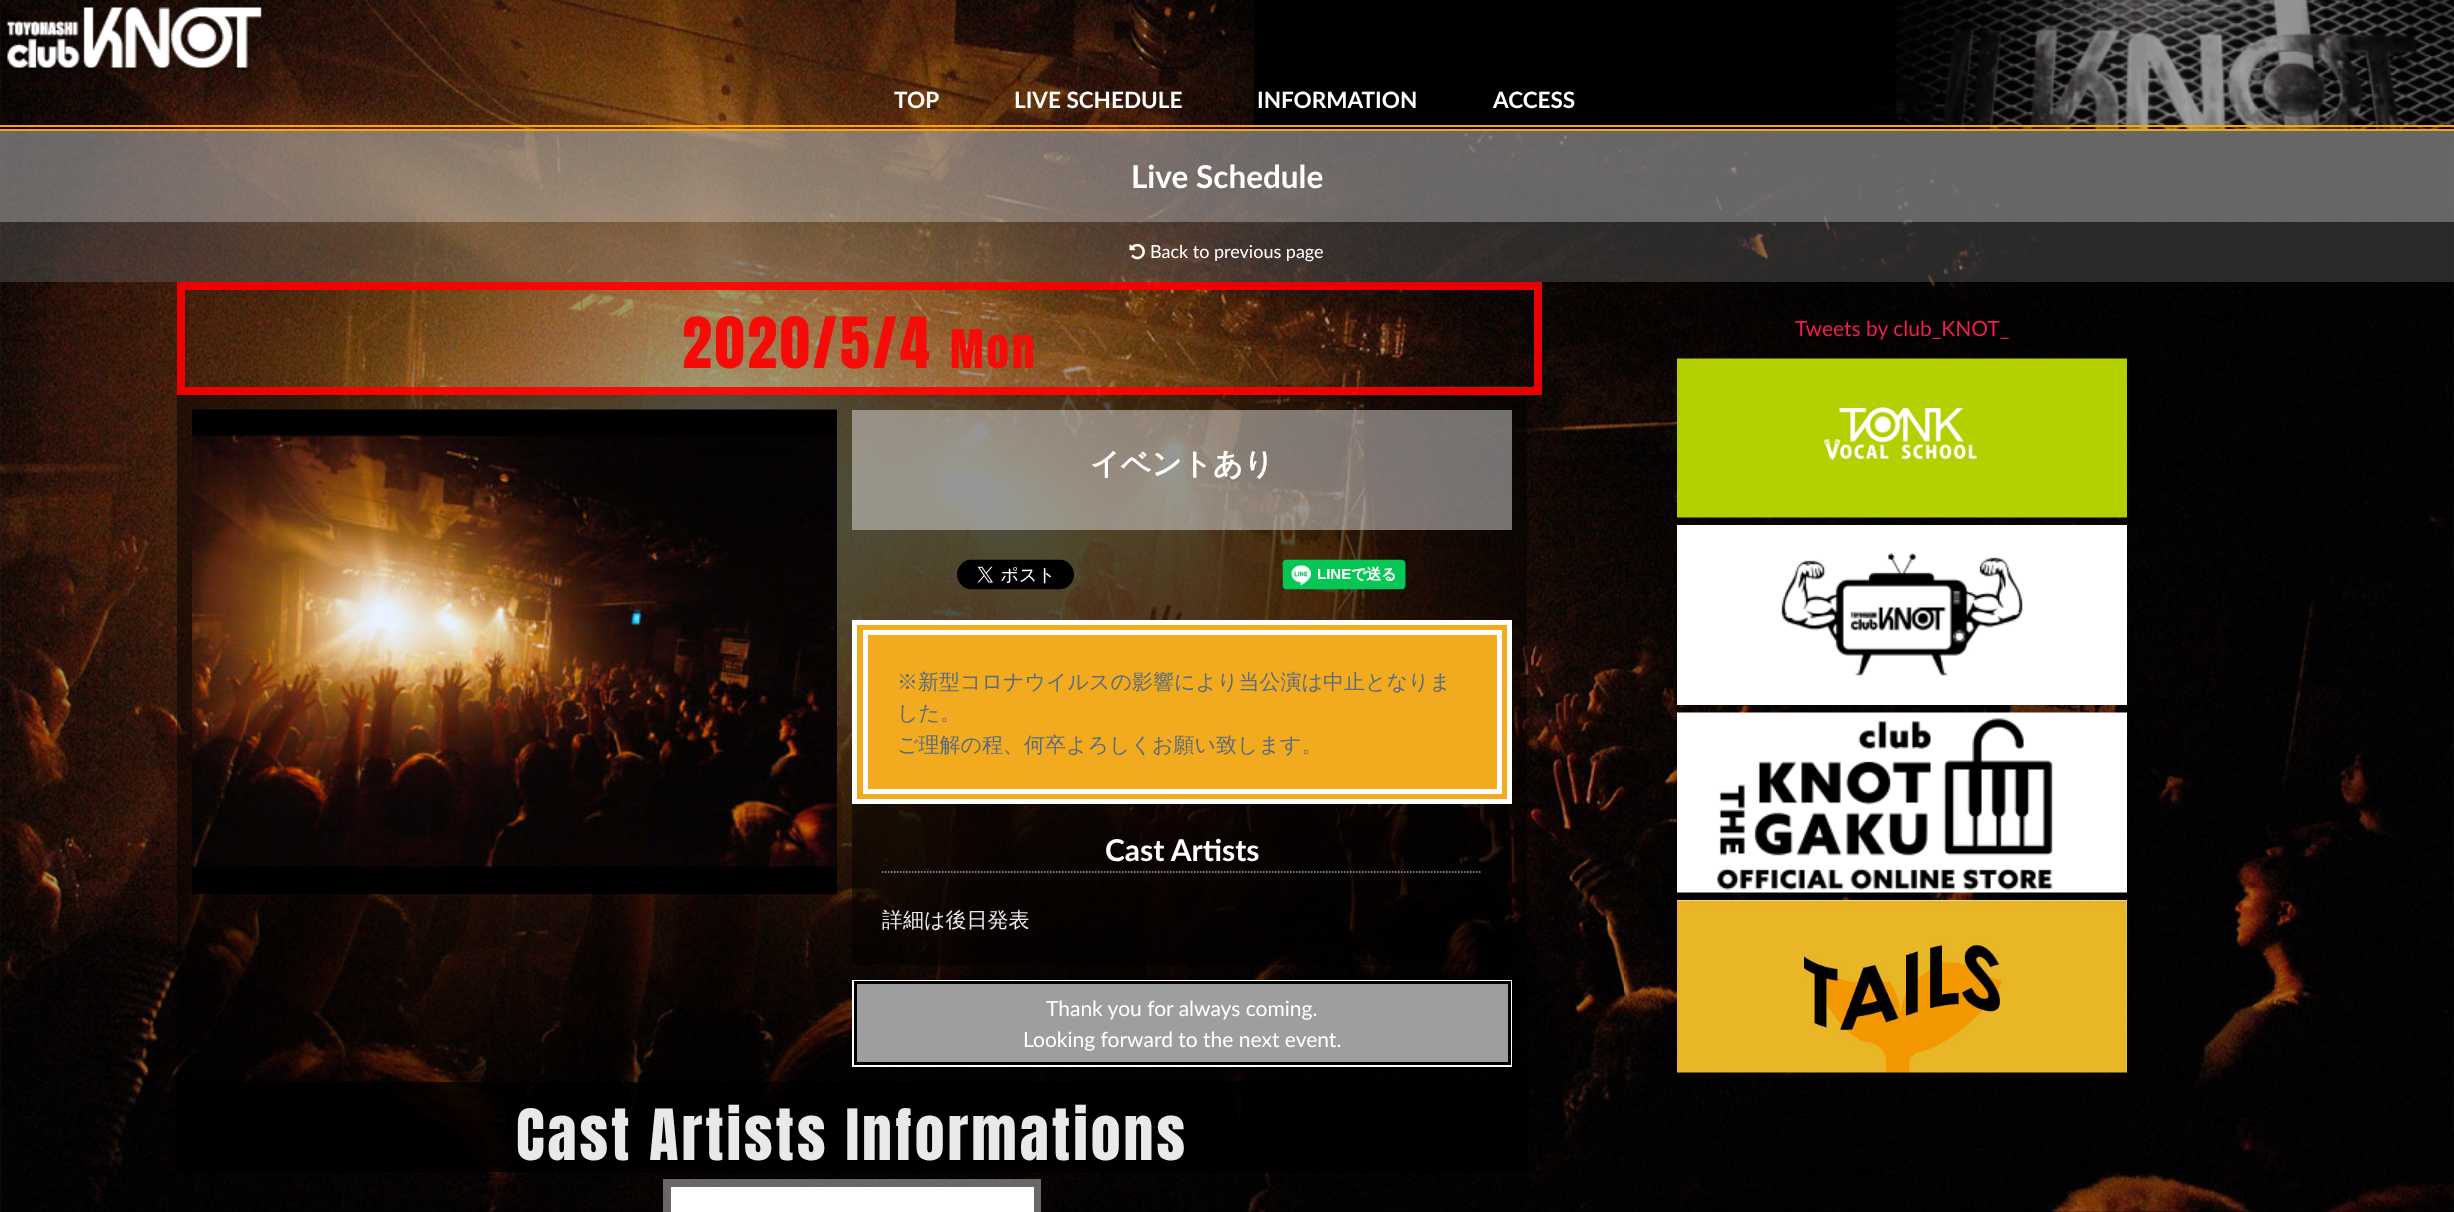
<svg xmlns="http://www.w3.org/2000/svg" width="2454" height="1212">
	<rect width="100%" height="100%" fill="#000000" />
	<image x="0" y="0" width="2454" height="1212" href="assets/img1.png" />
	<image x="1254" y="0" width="1200" height="129" href="assets/img2.png" />
	<rect x="0" y="125" width="2454" height="2" fill="#FFA500" />
	<rect x="0" y="129" width="2454" height="2" fill="#FFA500" />
	<image x="7" y="7" width="255" height="61" href="assets/img3.png" />
	<g font-family="Lato" font-size="22.5" font-weight="700" fill="#FFFFFF">
		<text x="894" y="108">TOP</text>
		<text x="1014" y="108">LIVE SCHEDULE</text>
		<text x="1257" y="108">INFORMATION</text>
		<text x="1493" y="108">ACCESS</text>
	</g>
	<rect x="0" y="131" width="2454" height="91" fill="#AAAAAA" fill-opacity="0.6" />
	<text x="1131" y="188" font-family="Lato" font-size="31.5" font-weight="700" fill="#FFFFFF">Live Schedule</text>
	<rect x="0" y="222" width="2454" height="60" fill="#666666" fill-opacity="0.4" />
	<image x="1129" y="243" width="16" height="17" href="assets/img4.png" />
	<text x="1150" y="258" font-family="Lato" font-size="18" fill="#FFFFFF">Back to previous page</text>
	<rect x="181" y="286" width="1357" height="105" fill="none" stroke="#FF0000" stroke-opacity="0.9" stroke-width="8" />
	<text x="682" y="368" font-family="Anton" font-size="60" letter-spacing="3" fill="#F50C08">2020/5/4</text>
	<text x="950" y="368" font-family="Anton" font-size="45" letter-spacing="3" fill="#F50C08">Mon</text>
	<rect x="177" y="395" width="1350" height="687" fill="#000000" fill-opacity="0.5" />
	<image x="192" y="409" width="645" height="485" href="assets/img5.png" />
	<rect x="852" y="410" width="660" height="120" fill="#DFDFDF" fill-opacity="0.5" />
	<text x="1090" y="474" font-family="WenQuanYi Zen Hei" font-size="30" font-weight="700" fill="#FFFFFF">イベントあり</text>
	<image x="957" y="559" width="117" height="31" href="assets/img6.png" />
	<image x="1282" y="559" width="124" height="31" href="assets/img7.png" />
	<rect x="854.5" y="622.5" width="655" height="179" fill="#F2AB1E" stroke="#FFFFFF" stroke-width="5" />
	<rect x="865.5" y="632.5" width="634" height="159" fill="none" stroke="#FFFFFF" stroke-width="5" />
	<g font-family="WenQuanYi Zen Hei" font-size="21" font-weight="500" fill="#5C6B80">
		<text x="897" y="689">※新型コロナウイルスの影響により当公演は中止となりま</text>
		<text x="897" y="720">した。</text>
		<text x="897" y="752">ご理解の程、何卒よろしくお願い致します。</text>
	</g>
	<rect x="852" y="804" width="660" height="161" fill="#000000" fill-opacity="0.5" />
	<path d="M882 872H1482" fill="none" stroke="#AAAAAA" stroke-width="1.5" stroke-dasharray="1.5 1.5" />
	<text x="1105" y="861" font-family="Lato" font-size="30" font-weight="700" fill="#FFFFFF">Cast Artists</text>
	<text x="882" y="927" font-family="WenQuanYi Zen Hei" font-size="21" font-weight="500" fill="#E9E9E9">詳細は後日発表</text>
	<rect x="852" y="980" width="660" height="87" fill="#FFFFFF" />
	<rect x="855.5" y="982.5" width="654" height="81" fill="#9E9E9E" stroke="#000000" stroke-width="3" />
	<g font-family="Lato" font-size="21" fill="#FFFFFF">
		<text x="1046" y="1016">Thank you for always coming.</text>
		<text x="1023" y="1047">Looking forward to the next event.</text>
	</g>
	<rect x="177" y="1082" width="1350" height="90" fill="#000000" fill-opacity="0.9" />
	<text x="516" y="1160" font-family="Anton" font-size="60" letter-spacing="3" fill="#E9E9E9">Cast Artists Informations</text>
	<rect x="663" y="1179" width="378" height="33" fill="#FFFFFF" fill-opacity="0.4" />
	<rect x="671" y="1187" width="363" height="25" fill="#FFFFFF" />
	<text x="1795" y="336" font-family="Lato" font-size="21" fill="#F01D4F">Tweets by club_KNOT_</text>
	<image x="1677" y="358" width="450" height="160" href="assets/img8.png" />
	<image x="1677" y="525" width="450" height="180" href="assets/img9.png" />
	<image x="1677" y="712" width="450" height="181" href="assets/img10.png" />
	<image x="1677" y="900" width="450" height="173" href="assets/img11.png" />
</svg>
